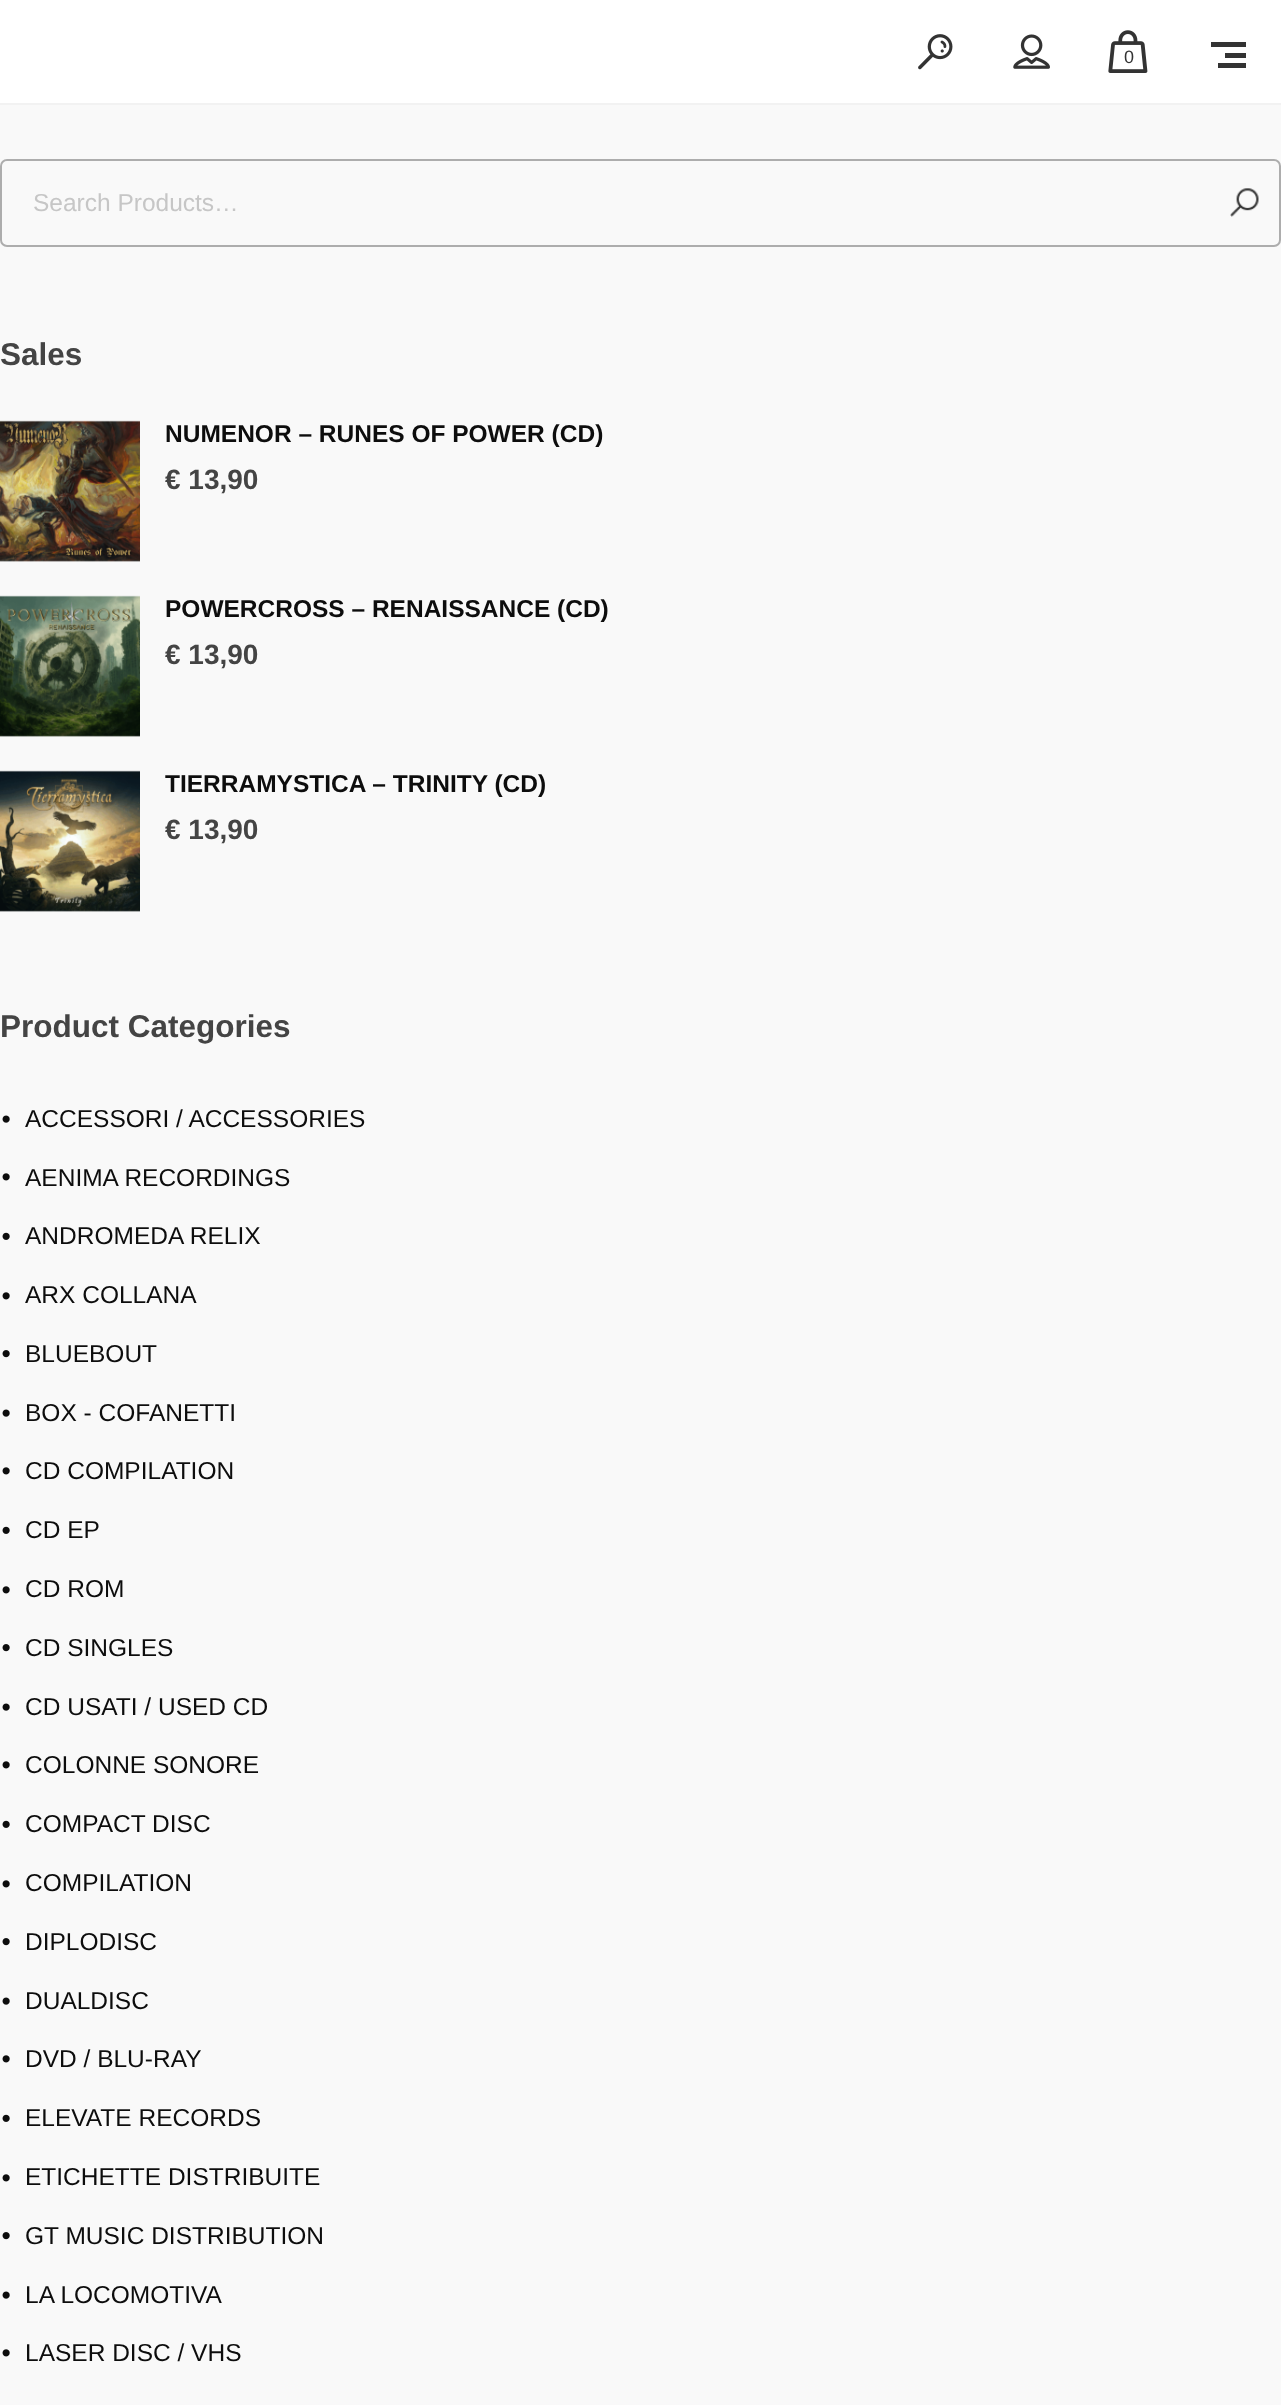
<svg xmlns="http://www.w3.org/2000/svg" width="1281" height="2405">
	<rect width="100%" height="100%" fill="#F9F9F9" />
	<rect x="0" y="0" width="1281" height="103" fill="#FFFFFF" />
	<rect x="0" y="103" width="1281" height="2" fill="#F2F2F2" />
	<image x="918" y="34" width="35" height="36" href="assets/img1.png" />
	<image x="1013" y="34" width="37" height="35" href="assets/img2.png" />
	<image x="1108" y="30" width="40" height="43" href="assets/img3.png" />
	<text x="1124" y="63" font-family="Liberation Sans" font-size="18" fill="#333333">0</text>
	<rect x="1211" y="42" width="35" height="5" fill="#333333" />
	<rect x="1225" y="53" width="21" height="5" fill="#333333" />
	<rect x="1218" y="63" width="28" height="5" fill="#333333" />
	<rect x="1" y="160" width="1279" height="86" rx="6" fill="none" stroke="#ADADAD" stroke-width="2" />
	<text x="33" y="211" font-family="Liberation Sans" font-size="24.5" fill="#C6C6C6">Search Products…</text>
	<image x="1230" y="188" width="29" height="29" href="assets/img4.png" />
	<text x="0" y="365" font-family="Liberation Sans" font-size="31.5" font-weight="700" fill="#444444">Sales</text>
	<image x="0" y="420" width="140" height="142" href="assets/img5.png" />
	<text x="165" y="442" font-family="Liberation Sans" font-size="24.5" font-weight="700" fill="#0D0D0D">NUMENOR – RUNES OF POWER (CD)</text>
	<text x="165" y="489" font-family="Liberation Sans" font-size="28" font-weight="700" fill="#444444">€ 13,90</text>
	<image x="0" y="595" width="140" height="142" href="assets/img6.png" />
	<text x="165" y="617" font-family="Liberation Sans" font-size="24.5" font-weight="700" fill="#0D0D0D">POWERCROSS – RENAISSANCE (CD)</text>
	<text x="165" y="664" font-family="Liberation Sans" font-size="28" font-weight="700" fill="#444444">€ 13,90</text>
	<image x="0" y="770" width="140" height="142" href="assets/img7.png" />
	<text x="165" y="792" font-family="Liberation Sans" font-size="24.5" font-weight="700" fill="#0D0D0D">TIERRAMYSTICA – TRINITY (CD)</text>
	<text x="165" y="839" font-family="Liberation Sans" font-size="28" font-weight="700" fill="#444444">€ 13,90</text>
	<text x="0" y="1037" font-family="Liberation Sans" font-size="31.5" font-weight="700" fill="#444444">Product Categories</text>
	<image x="2" y="1115" width="8" height="8" href="assets/img8.png" />
	<text x="25" y="1127" font-family="Liberation Sans" font-size="24.5" fill="#0D0D0D">ACCESSORI / ACCESSORIES</text>
	<image x="2" y="1173" width="8" height="8" href="assets/img9.png" />
	<text x="25" y="1186" font-family="Liberation Sans" font-size="24.5" fill="#0D0D0D">AENIMA RECORDINGS</text>
	<image x="2" y="1232" width="8" height="8" href="assets/img10.png" />
	<text x="25" y="1244" font-family="Liberation Sans" font-size="24.5" fill="#0D0D0D">ANDROMEDA RELIX</text>
	<image x="2" y="1292" width="8" height="8" href="assets/img9.png" />
	<text x="25" y="1303" font-family="Liberation Sans" font-size="24.5" fill="#0D0D0D">ARX COLLANA</text>
	<image x="2" y="1350" width="8" height="8" href="assets/img11.png" />
	<text x="25" y="1362" font-family="Liberation Sans" font-size="24.5" fill="#0D0D0D">BLUEBOUT</text>
	<image x="2" y="1409" width="8" height="8" href="assets/img8.png" />
	<text x="25" y="1421" font-family="Liberation Sans" font-size="24.5" fill="#0D0D0D">BOX - COFANETTI</text>
	<image x="2" y="1467" width="8" height="8" href="assets/img9.png" />
	<text x="25" y="1479" font-family="Liberation Sans" font-size="24.5" fill="#0D0D0D">CD COMPILATION</text>
	<image x="2" y="1526" width="8" height="8" href="assets/img10.png" />
	<text x="25" y="1538" font-family="Liberation Sans" font-size="24.5" fill="#0D0D0D">CD EP</text>
	<image x="2" y="1586" width="8" height="8" href="assets/img9.png" />
	<text x="25" y="1597" font-family="Liberation Sans" font-size="24.5" fill="#0D0D0D">CD ROM</text>
	<image x="2" y="1644" width="8" height="8" href="assets/img11.png" />
	<text x="25" y="1656" font-family="Liberation Sans" font-size="24.5" fill="#0D0D0D">CD SINGLES</text>
	<image x="2" y="1703" width="8" height="8" href="assets/img8.png" />
	<text x="25" y="1715" font-family="Liberation Sans" font-size="24.5" fill="#0D0D0D">CD USATI / USED CD</text>
	<image x="2" y="1761" width="8" height="8" href="assets/img9.png" />
	<text x="25" y="1773" font-family="Liberation Sans" font-size="24.5" fill="#0D0D0D">COLONNE SONORE</text>
	<image x="2" y="1820" width="8" height="8" href="assets/img10.png" />
	<text x="25" y="1832" font-family="Liberation Sans" font-size="24.5" fill="#0D0D0D">COMPACT DISC</text>
	<image x="2" y="1880" width="8" height="8" href="assets/img9.png" />
	<text x="25" y="1891" font-family="Liberation Sans" font-size="24.5" fill="#0D0D0D">COMPILATION</text>
	<image x="2" y="1938" width="8" height="8" href="assets/img11.png" />
	<text x="25" y="1950" font-family="Liberation Sans" font-size="24.5" fill="#0D0D0D">DIPLODISC</text>
	<image x="2" y="1997" width="8" height="8" href="assets/img8.png" />
	<text x="25" y="2009" font-family="Liberation Sans" font-size="24.5" fill="#0D0D0D">DUALDISC</text>
	<image x="2" y="2055" width="8" height="8" href="assets/img9.png" />
	<text x="25" y="2067" font-family="Liberation Sans" font-size="24.5" fill="#0D0D0D">DVD / BLU-RAY</text>
	<image x="2" y="2114" width="8" height="8" href="assets/img10.png" />
	<text x="25" y="2126" font-family="Liberation Sans" font-size="24.5" fill="#0D0D0D">ELEVATE RECORDS</text>
	<image x="2" y="2174" width="8" height="8" href="assets/img9.png" />
	<text x="25" y="2185" font-family="Liberation Sans" font-size="24.5" fill="#0D0D0D">ETICHETTE DISTRIBUITE</text>
	<image x="2" y="2232" width="8" height="8" href="assets/img11.png" />
	<text x="25" y="2244" font-family="Liberation Sans" font-size="24.5" fill="#0D0D0D">GT MUSIC DISTRIBUTION</text>
	<image x="2" y="2291" width="8" height="8" href="assets/img8.png" />
	<text x="25" y="2303" font-family="Liberation Sans" font-size="24.5" fill="#0D0D0D">LA LOCOMOTIVA</text>
	<image x="2" y="2349" width="8" height="8" href="assets/img9.png" />
	<text x="25" y="2361" font-family="Liberation Sans" font-size="24.5" fill="#0D0D0D">LASER DISC / VHS</text>
</svg>
